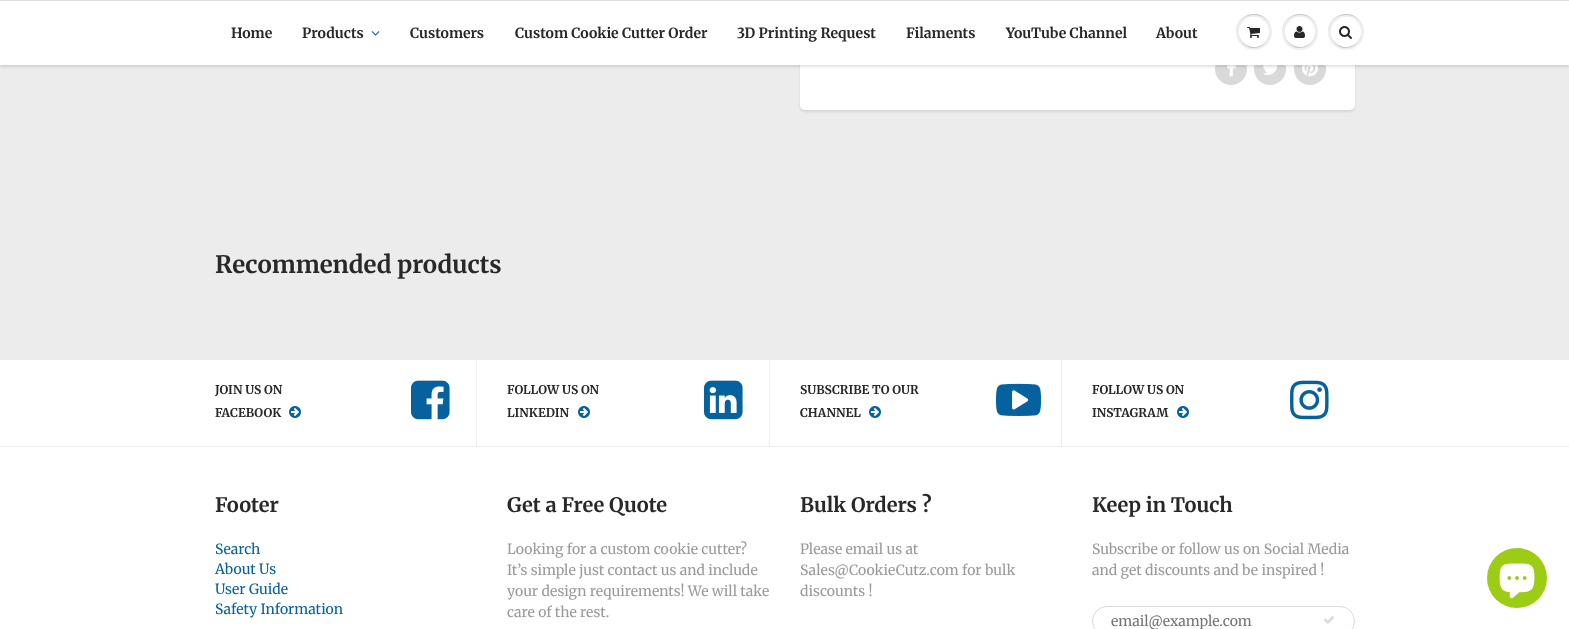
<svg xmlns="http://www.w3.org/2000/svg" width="1569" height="629">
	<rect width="100%" height="100%" fill="#FFFFFF" />
	<rect x="0" y="65" width="1569" height="295" fill="#ECECEC" />
	<rect x="800" y="-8" width="555" height="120" rx="5" fill="#0B191C" fill-opacity="0.1" filter="blur(1px)" />
	<rect x="800" y="-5" width="555" height="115" rx="5" fill="#FFFFFF" />
	<circle cx="1231" cy="69" r="16" fill="#D9D9D9" />
	<image x="1227" y="65" width="9" height="12" href="assets/img1.png" />
	<circle cx="1270" cy="69" r="16" fill="#D9D9D9" />
	<image x="1263" y="65" width="15" height="10" href="assets/img2.png" />
	<circle cx="1310" cy="69" r="16" fill="#D9D9D9" />
	<image x="1302" y="65" width="16" height="12" href="assets/img3.png" />
	<rect x="0" y="2" width="1569" height="65" fill="#0B191C" fill-opacity="0.12" filter="blur(1px)" />
	<rect x="0" y="1" width="1569" height="64" fill="#FFFFFF" />
	<rect x="0" y="0" width="1569" height="1" fill="#DEDEDE" />
	<g font-family="'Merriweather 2'" font-size="14" font-weight="700" fill="#282827">
		<text x="231" y="38">Home</text>
		<text x="302" y="38">Products</text>
	</g>
	<image x="371" y="31" width="9" height="5" href="assets/img4.png" />
	<g font-family="'Merriweather 2'" font-size="14" font-weight="700" fill="#282827">
		<text x="410" y="38">Customers</text>
		<text x="515" y="38">Custom Cookie Cutter Order</text>
		<text x="737" y="38">3D Printing Request</text>
		<text x="906" y="38">Filaments</text>
		<text x="1006" y="38">YouTube Channel</text>
		<text x="1156" y="38">About</text>
	</g>
	<circle cx="1254" cy="32" r="18" fill="#EDEFEF" />
	<path d="M1254 15C1266 15 1272 23.5 1272 32.5C1272 29 1271 25 1269 22C1259 7 1235.5 14.5 1236 32.5C1236 23.5 1242 15 1254 15Z" fill="#C9CBCB" />
	<path d="M1269 32.5C1268.5 51.5 1239.5 51.5 1239 32.5C1239 35.5 1240 39 1241.5 41.5C1250 54 1269.5 47.5 1269 32.5Z" fill="#C9CBCB" />
	<circle cx="1254" cy="32" r="15" fill="#FFFFFF" />
	<path d="M1254 18C1264 18 1269 25 1269 32.5C1269 29.5 1268 26 1266.5 23.5C1258 11 1238.5 17.5 1239 32.5C1239 25 1244 18 1254 18Z" fill="#FFFFFF" />
	<image x="1247" y="27" width="13" height="11" href="assets/img5.png" />
	<circle cx="1300" cy="32" r="18" fill="#EDEFEF" />
	<path d="M1300 15C1312 15 1318 23.5 1318 32.5C1318 29 1317 25 1315 22C1305 7 1281.5 14.5 1282 32.5C1282 23.5 1288 15 1300 15Z" fill="#C9CBCB" />
	<path d="M1315 32.5C1314.5 51.5 1285.5 51.5 1285 32.5C1285 35.5 1286 39 1287.5 41.5C1296 54 1315.5 47.5 1315 32.5Z" fill="#C9CBCB" />
	<circle cx="1300" cy="32" r="15" fill="#FFFFFF" />
	<path d="M1300 18C1310 18 1315 25 1315 32.5C1315 29.5 1314 26 1312.5 23.5C1304 11 1284.5 17.5 1285 32.5C1285 25 1290 18 1300 18Z" fill="#FFFFFF" />
	<image x="1294" y="26" width="11" height="12" href="assets/img6.png" />
	<circle cx="1346" cy="32" r="18" fill="#EDEFEF" />
	<path d="M1346 15C1358 15 1364 23.5 1364 32.5C1364 29 1363 25 1361 22C1351 7 1327.5 14.5 1328 32.5C1328 23.5 1334 15 1346 15Z" fill="#C9CBCB" />
	<path d="M1361 32.5C1360.5 51.5 1331.5 51.5 1331 32.5C1331 35.5 1332 39 1333.5 41.5C1342 54 1361.5 47.5 1361 32.5Z" fill="#C9CBCB" />
	<circle cx="1346" cy="32" r="15" fill="#FFFFFF" />
	<path d="M1346 18C1356 18 1361 25 1361 32.5C1361 29.5 1360 26 1358.5 23.5C1350 11 1330.5 17.5 1331 32.5C1331 25 1336 18 1346 18Z" fill="#FFFFFF" />
	<image x="1339" y="26" width="13" height="13" href="assets/img7.png" />
	<text x="215" y="273" font-family="Merriweather" font-size="24" font-weight="700" fill="#282827">Recommended products</text>
	<rect x="476" y="360" width="1" height="86" fill="#ECEFEF" />
	<g font-family="'Merriweather 2'" font-size="12" font-weight="700" fill="#282827">
		<text x="215" y="394">JOIN US ON</text>
		<text x="215" y="417">FACEBOOK</text>
	</g>
	<image x="289" y="406" width="12" height="12" href="assets/img8.png" />
	<image x="411" y="380" width="39" height="40" href="assets/img9.png" />
	<rect x="769" y="360" width="1" height="86" fill="#ECEFEF" />
	<g font-family="'Merriweather 2'" font-size="12" font-weight="700" fill="#282827">
		<text x="507" y="394">FOLLOW US ON</text>
		<text x="507" y="417">LINKEDIN</text>
	</g>
	<image x="578" y="406" width="12" height="12" href="assets/img8.png" />
	<image x="704" y="380" width="39" height="40" href="assets/img10.png" />
	<rect x="1061" y="360" width="1" height="86" fill="#ECEFEF" />
	<g font-family="'Merriweather 2'" font-size="12" font-weight="700" fill="#282827">
		<text x="800" y="394">SUBSCRIBE TO OUR</text>
		<text x="800" y="417">CHANNEL</text>
	</g>
	<image x="869" y="406" width="12" height="12" href="assets/img8.png" />
	<image x="996" y="383" width="45" height="33" href="assets/img11.png" />
	<g font-family="'Merriweather 2'" font-size="12" font-weight="700" fill="#282827">
		<text x="1092" y="394">FOLLOW US ON</text>
		<text x="1092" y="417">INSTAGRAM</text>
	</g>
	<image x="1177" y="406" width="12" height="12" href="assets/img8.png" />
	<image x="1290" y="380" width="39" height="40" href="assets/img12.png" />
	<rect x="0" y="446" width="1569" height="1" fill="#ECEFEF" />
	<text x="215" y="512" font-family="'Merriweather 2'" font-size="20" font-weight="700" fill="#282827">Footer</text>
	<g font-family="Merriweather" font-size="14" fill="#05629F">
		<text x="215" y="554">Search</text>
		<text x="215" y="574">About Us</text>
		<text x="215" y="594">User Guide</text>
		<text x="215" y="614">Safety Information</text>
	</g>
	<text x="507" y="512" font-family="'Merriweather 2'" font-size="20" font-weight="700" fill="#282827">Get a Free Quote</text>
	<g font-family="Merriweather" font-size="14" fill="#9A9A9A">
		<text x="507" y="554">Looking for a custom cookie cutter?</text>
		<text x="507" y="575">It’s simple just contact us and include</text>
		<text x="507" y="596">your design requirements! We will take</text>
		<text x="507" y="617">care of the rest.</text>
	</g>
	<text x="800" y="512" font-family="'Merriweather 2'" font-size="20" font-weight="700" fill="#282827">Bulk Orders ?</text>
	<g font-family="Merriweather" font-size="14" fill="#9A9A9A">
		<text x="800" y="554">Please email us at</text>
		<text x="800" y="575">Sales@CookieCutz.com for bulk</text>
		<text x="800" y="596">discounts !</text>
	</g>
	<text x="1092" y="512" font-family="'Merriweather 2'" font-size="20" font-weight="700" fill="#282827">Keep in Touch</text>
	<g font-family="Merriweather" font-size="14" fill="#9A9A9A">
		<text x="1092" y="554">Subscribe or follow us on Social Media</text>
		<text x="1092" y="575">and get discounts and be inspired !</text>
	</g>
	<rect x="1092.5" y="606.5" width="262" height="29" rx="14.5" fill="none" stroke="#D7DBDB" />
	<text x="1111" y="626" font-family="Merriweather" font-size="14" fill="#757575">email@example.com</text>
	<image x="1324" y="616" width="10" height="8" href="assets/img13.png" />
	<circle cx="1517" cy="578" r="30" fill="#9CCD14" />
	<image x="1499" y="563" width="36" height="36" href="assets/img14.png" />
</svg>
